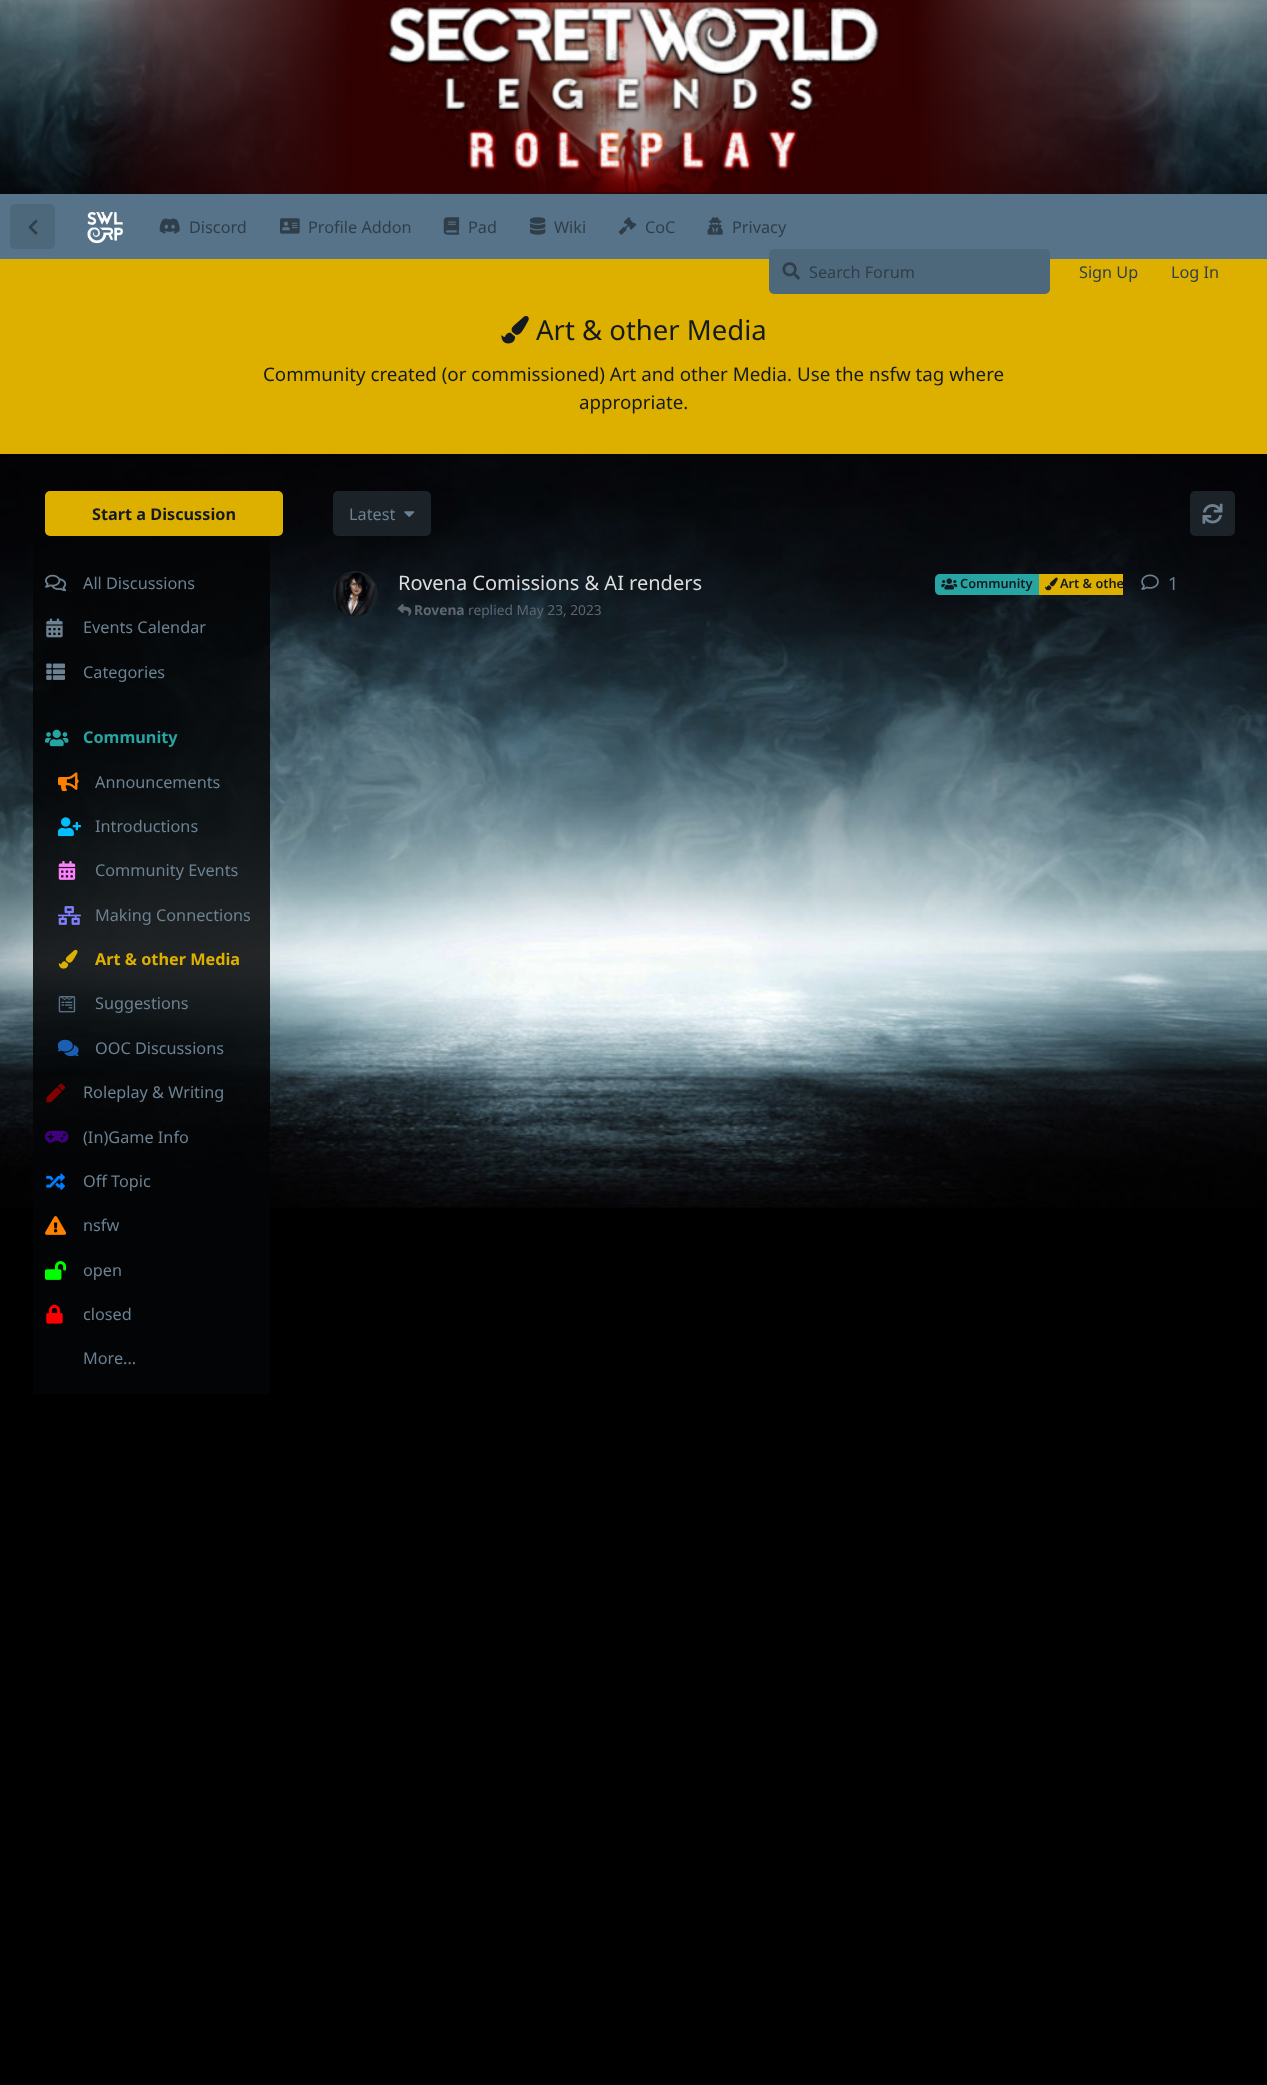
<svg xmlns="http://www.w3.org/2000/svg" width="1267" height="2085">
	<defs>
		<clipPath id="clip1"><rect x="935" y="573" width="188" height="22" /></clipPath>
	</defs>
	<rect width="100%" height="100%" fill="#000000" />
	<image x="0" y="0" width="1267" height="1208" href="assets/img1.png" />
	<image x="77" y="0" width="1114" height="194" href="assets/img2.png" />
	<rect x="0" y="194" width="1267" height="65" fill="#577389" />
	<rect x="10" y="204" width="45" height="45" rx="5" fill="#4E687B" />
	<image x="28" y="219" width="10" height="16" href="assets/img3.png" />
	<image x="87" y="211" width="36" height="33" href="assets/img4.png" />
	<image x="159" y="218" width="21" height="16" href="assets/img5.png" />
	<text x="189" y="233" font-family="Noto Sans" font-size="16.25" fill="#2F3E49">Discord</text>
	<image x="280" y="218" width="20" height="16" href="assets/img6.png" />
	<text x="308" y="233" font-family="Noto Sans" font-size="16.25" fill="#2F3E49">Profile Addon</text>
	<image x="443" y="217" width="17" height="18" href="assets/img7.png" />
	<text x="468" y="233" font-family="Noto Sans" font-size="16.25" fill="#2F3E49">Pad</text>
	<image x="530" y="217" width="16" height="18" href="assets/img8.png" />
	<text x="554" y="233" font-family="Noto Sans" font-size="16.25" fill="#2F3E49">Wiki</text>
	<image x="618" y="217" width="19" height="18" href="assets/img9.png" />
	<text x="645" y="233" font-family="Noto Sans" font-size="16.25" fill="#2F3E49">CoC</text>
	<image x="707" y="217" width="16" height="18" href="assets/img10.png" />
	<text x="732" y="233" font-family="Noto Sans" font-size="16.25" fill="#2F3E49">Privacy</text>
	<rect x="0" y="259" width="1267" height="195" fill="#DDB000" />
	<rect x="769" y="249" width="281" height="45" rx="5" fill="#4E687B" />
	<image x="782" y="262" width="18" height="18" href="assets/img11.png" />
	<g font-family="Noto Sans" font-size="16.25" fill="#2F3E49">
		<text x="809" y="278">Search Forum</text>
		<text x="1079" y="278">Sign Up</text>
		<text x="1171" y="278">Log In</text>
	</g>
	<image x="501" y="316" width="28" height="28" href="assets/img12.png" />
	<text x="536" y="340" font-family="Noto Sans" font-size="27.5" fill="#141A1F">Art &amp; other Media</text>
	<g font-family="Noto Sans" font-size="18.75" fill="#141A1F">
		<text x="263" y="381">Community created (or commissioned) Art and other Media. Use the nsfw tag where</text>
		<text x="579" y="409">appropriate.</text>
	</g>
	<rect x="33" y="496" width="237" height="898" fill="#040506" fill-opacity="0.86" />
	<rect x="45" y="491" width="238" height="45" rx="5" fill="#DDB000" />
	<text x="92" y="520" font-family="Noto Sans" font-size="16.25" font-weight="700" fill="#141A1F">Start a Discussion</text>
	<image x="45" y="574" width="22" height="18" href="assets/img13.png" />
	<text x="83" y="589" font-family="Noto Sans" font-size="16.25" fill="#6C8293">All Discussions</text>
	<image x="46" y="618" width="17" height="20" href="assets/img14.png" />
	<text x="83" y="633" font-family="Noto Sans" font-size="16.25" fill="#6C8293">Events Calendar</text>
	<image x="46" y="663" width="19" height="17" href="assets/img15.png" />
	<text x="83" y="678" font-family="Noto Sans" font-size="16.25" fill="#6C8293">Categories</text>
	<image x="45" y="729" width="24" height="18" href="assets/img16.png" />
	<text x="83" y="743" font-family="Noto Sans" font-size="16.25" font-weight="700" fill="#27A5A2">Community</text>
	<image x="58" y="772" width="21" height="20" href="assets/img17.png" />
	<text x="95" y="788" font-family="Noto Sans" font-size="16.25" fill="#6C8293">Announcements</text>
	<image x="58" y="817" width="23" height="20" href="assets/img18.png" />
	<text x="95" y="832" font-family="Noto Sans" font-size="16.25" fill="#6C8293">Introductions</text>
	<image x="58" y="861" width="18" height="19" href="assets/img19.png" />
	<text x="95" y="876" font-family="Noto Sans" font-size="16.25" fill="#6C8293">Community Events</text>
	<image x="58" y="906" width="23" height="19" href="assets/img20.png" />
	<text x="95" y="921" font-family="Noto Sans" font-size="16.25" fill="#6C8293">Making Connections</text>
	<image x="58" y="949" width="20" height="20" href="assets/img21.png" />
	<text x="95" y="965" font-family="Noto Sans" font-size="16.25" font-weight="700" fill="#DDB000">Art &amp; other Media</text>
	<image x="58" y="996" width="18" height="17" href="assets/img22.png" />
	<text x="95" y="1009" font-family="Noto Sans" font-size="16.25" fill="#6C8293">Suggestions</text>
	<image x="58" y="1039" width="21" height="18" href="assets/img23.png" />
	<text x="95" y="1054" font-family="Noto Sans" font-size="16.25" fill="#6C8293">OOC Discussions</text>
	<image x="46" y="1083" width="19" height="20" href="assets/img24.png" />
	<text x="83" y="1098" font-family="Noto Sans" font-size="16.25" fill="#6C8293">Roleplay &amp; Writing</text>
	<image x="45" y="1130" width="24" height="13" href="assets/img25.png" />
	<text x="83" y="1143" font-family="Noto Sans" font-size="16.25" fill="#6C8293">(In)Game Info</text>
	<image x="46" y="1173" width="19" height="17" href="assets/img26.png" />
	<text x="83" y="1187" font-family="Noto Sans" font-size="16.25" fill="#6C8293">Off Topic</text>
	<image x="45" y="1216" width="22" height="19" href="assets/img27.png" />
	<text x="83" y="1231" font-family="Noto Sans" font-size="16.25" fill="#6C8293">nsfw</text>
	<image x="45" y="1261" width="22" height="19" href="assets/img28.png" />
	<text x="83" y="1276" font-family="Noto Sans" font-size="16.25" fill="#6C8293">open</text>
	<image x="46" y="1304" width="17" height="20" href="assets/img29.png" />
	<g font-family="Noto Sans" font-size="16.25" fill="#6C8293">
		<text x="83" y="1320">closed</text>
		<text x="83" y="1364">More...</text>
	</g>
	<rect x="333" y="491" width="98" height="45" rx="5" fill="#1B2228" />
	<text x="349" y="520" font-family="Noto Sans" font-size="16.25" fill="#6C8293">Latest</text>
	<image x="404" y="511" width="11" height="6" href="assets/img30.png" />
	<rect x="1190" y="491" width="45" height="45" rx="5" fill="#1B2228" />
	<image x="1202" y="503" width="21" height="21" href="assets/img31.png" />
	<circle cx="355.5" cy="593.5" r="22.5" fill="#1B2228" />
	<image x="335" y="572" width="40" height="44" href="assets/img32.png" />
	<text x="398" y="590" font-family="Noto Sans" font-size="20" fill="#DDDDDD">Rovena Comissions &amp; AI renders</text>
	<path d="M940 574H1039V595H940C937 595 935 593 935 590V579C935 576 937 574 940 574Z" fill="#27A5A2" />
	<image x="941" y="578" width="17" height="12" href="assets/img33.png" />
	<text x="960" y="588" font-family="Noto Sans" font-size="12.75" font-weight="600" fill="#141A1F">Community</text>
	<rect x="1039" y="574" width="84" height="21" fill="#DDB000" />
	<image x="1045" y="577" width="13" height="14" href="assets/img34.png" />
	<g clip-path="url(#clip1)">
		<text x="1060" y="588" font-family="Noto Sans" font-size="12.75" font-weight="600" fill="#141A1F">Art &amp; othe</text>
	</g>
	<image x="397" y="603" width="15" height="13" href="assets/img35.png" />
	<text x="414" y="615" font-family="Noto Sans" font-size="13.75" font-weight="700" fill="#5C6770">Rovena</text>
	<text x="468" y="615" font-family="Noto Sans" font-size="13.75" fill="#5C6770">replied May 23, 2023</text>
	<image x="1141" y="574" width="18" height="16" href="assets/img36.png" />
	<text x="1168" y="590" font-family="Noto Sans" font-size="18" fill="#6C8293">1</text>
</svg>
